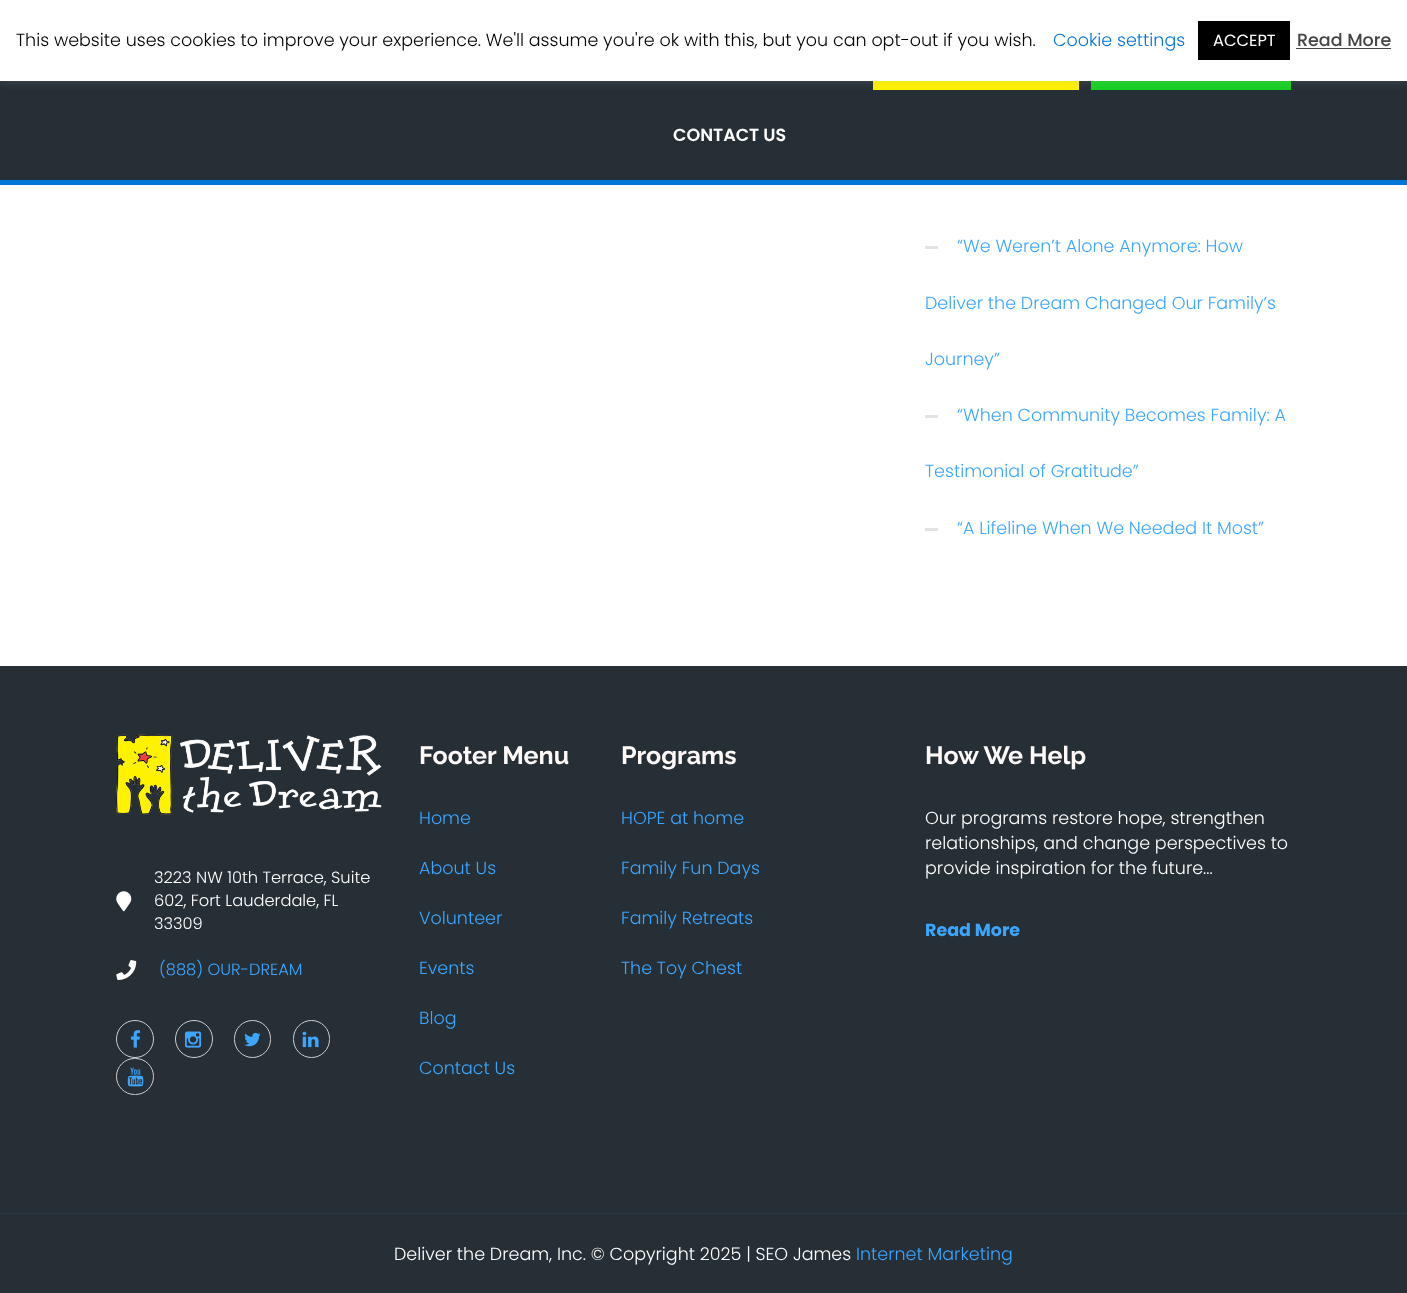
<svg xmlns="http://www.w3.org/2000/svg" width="1407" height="1293">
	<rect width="100%" height="100%" fill="#FFFFFF" />
	<rect x="0" y="81" width="1407" height="99" fill="#262F36" />
	<rect x="873" y="81" width="206" height="9" fill="#FFF200" />
	<rect x="1091" y="81" width="200" height="9" fill="#16CF22" />
	<rect x="0" y="-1" width="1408" height="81" fill="#ACABAB" fill-opacity="0.3" filter="blur(6px)" />
	<rect x="0" y="0" width="1407" height="81" fill="#FFFFFF" />
	<text x="16" y="46" font-family="Poppins" font-size="17.5" font-weight="300" fill="#000000">This website uses cookies to improve your experience. We'll assume you're ok with this, but you can opt-out if you wish.</text>
	<text x="1053" y="46" font-family="Poppins" font-size="17.5" font-weight="300" fill="#0275D9">Cookie settings</text>
	<rect x="1198" y="21" width="92" height="39" fill="#000000" />
	<text x="1213" y="46" font-family="Poppins" font-size="16.25" fill="#FFFFFF">ACCEPT</text>
	<text x="1297" y="46" font-family="Poppins" font-size="17.5" font-weight="500" fill="#444444">Read More</text>
	<rect x="1296" y="48" width="95" height="1" fill="#444444" />
	<rect x="0" y="180" width="1407" height="5" fill="#0275D9" />
	<text x="673" y="141" font-family="Poppins" font-size="17.5" font-weight="600" fill="#FFFFFF">CONTACT US</text>
	<rect x="925" y="246" width="13" height="3" fill="#E3E3E3" />
	<g font-family="Poppins" font-size="17.5" font-weight="300" fill="#3CA6FF">
		<text x="957" y="252">“We Weren’t Alone Anymore: How</text>
		<text x="925" y="309">Deliver the Dream Changed Our Family’s</text>
		<text x="925" y="365">Journey”</text>
	</g>
	<rect x="925" y="415" width="13" height="3" fill="#E3E3E3" />
	<g font-family="Poppins" font-size="17.5" font-weight="300" fill="#3CA6FF">
		<text x="957" y="421">“When Community Becomes Family: A</text>
		<text x="925" y="477">Testimonial of Gratitude”</text>
	</g>
	<rect x="925" y="528" width="13" height="3" fill="#E3E3E3" />
	<text x="957" y="534" font-family="Poppins" font-size="17.5" font-weight="300" fill="#3CA6FF">“A Lifeline When We Needed It Most”</text>
	<rect x="0" y="666" width="1407" height="547" fill="#262F36" />
	<image x="116" y="734" width="266" height="81" href="assets/img1.png" />
	<image x="116" y="891" width="16" height="21" href="assets/img2.png" />
	<g font-family="Poppins" font-size="16.25" font-weight="300" fill="#FFFFFF">
		<text x="154" y="883">3223 NW 10th Terrace, Suite</text>
		<text x="154" y="906">602, Fort Lauderdale, FL</text>
		<text x="154" y="929">33309</text>
	</g>
	<image x="116" y="960" width="21" height="20" href="assets/img3.png" />
	<text x="159" y="975" font-family="Poppins" font-size="16.25" font-weight="300" fill="#3CA6FF">(888) OUR-DREAM</text>
	<circle cx="135" cy="1039" r="18.5" fill="none" stroke="#CACFD3" />
	<image x="131" y="1030" width="10" height="18" href="assets/img4.png" />
	<circle cx="194" cy="1039" r="18.5" fill="none" stroke="#CACFD3" />
	<image x="185" y="1031" width="17" height="17" href="assets/img5.png" />
	<rect x="234.5" y="1020.5" width="36" height="37" rx="18" fill="none" stroke="#CACFD3" />
	<image x="244" y="1032" width="17" height="15" href="assets/img6.png" />
	<rect x="293.5" y="1020.5" width="36" height="37" rx="18" fill="none" stroke="#CACFD3" />
	<image x="302" y="1031" width="17" height="17" href="assets/img7.png" />
	<rect x="116.5" y="1058.5" width="37" height="36" rx="18" fill="none" stroke="#CACFD3" />
	<image x="127" y="1067" width="17" height="20" href="assets/img8.png" />
	<text x="419" y="764" font-family="Raleway" font-size="25" font-weight="700" fill="#FEF9F9">Footer Menu</text>
	<g font-family="Poppins" font-size="17.5" font-weight="300" fill="#3CA6FF">
		<text x="419" y="824">Home</text>
		<text x="419" y="874">About Us</text>
		<text x="419" y="924">Volunteer</text>
		<text x="419" y="974">Events</text>
		<text x="419" y="1024">Blog</text>
		<text x="419" y="1074">Contact Us</text>
	</g>
	<text x="621" y="764" font-family="Raleway" font-size="25" font-weight="700" fill="#FEF9F9">Programs</text>
	<g font-family="Poppins" font-size="17.5" font-weight="300" fill="#3CA6FF">
		<text x="621" y="824">HOPE at home</text>
		<text x="621" y="874">Family Fun Days</text>
		<text x="621" y="924">Family Retreats</text>
		<text x="621" y="974">The Toy Chest</text>
	</g>
	<text x="925" y="764" font-family="Raleway" font-size="25" font-weight="700" fill="#FEF9F9">How We Help</text>
	<g font-family="Poppins" font-size="17.5" font-weight="300" fill="#FFFFFF">
		<text x="925" y="824">Our programs restore hope, strengthen</text>
		<text x="925" y="849">relationships, and change perspectives to</text>
		<text x="925" y="874">provide inspiration for the future...</text>
	</g>
	<text x="925" y="936" font-family="Poppins" font-size="17.5" font-weight="700" fill="#3CA6FF">Read More</text>
	<rect x="0" y="1214" width="1407" height="79" fill="#262F36" />
	<rect x="0" y="1213" width="1407" height="1" fill="#2D373F" />
	<text x="394" y="1260" font-family="Poppins" font-size="17.5" font-weight="300" fill="#FFFFFF">Deliver the Dream, Inc. © Copyright 2025 | SEO James</text>
	<text x="856" y="1260" font-family="Poppins" font-size="17.5" font-weight="300" fill="#3CA6FF">Internet Marketing</text>
</svg>
